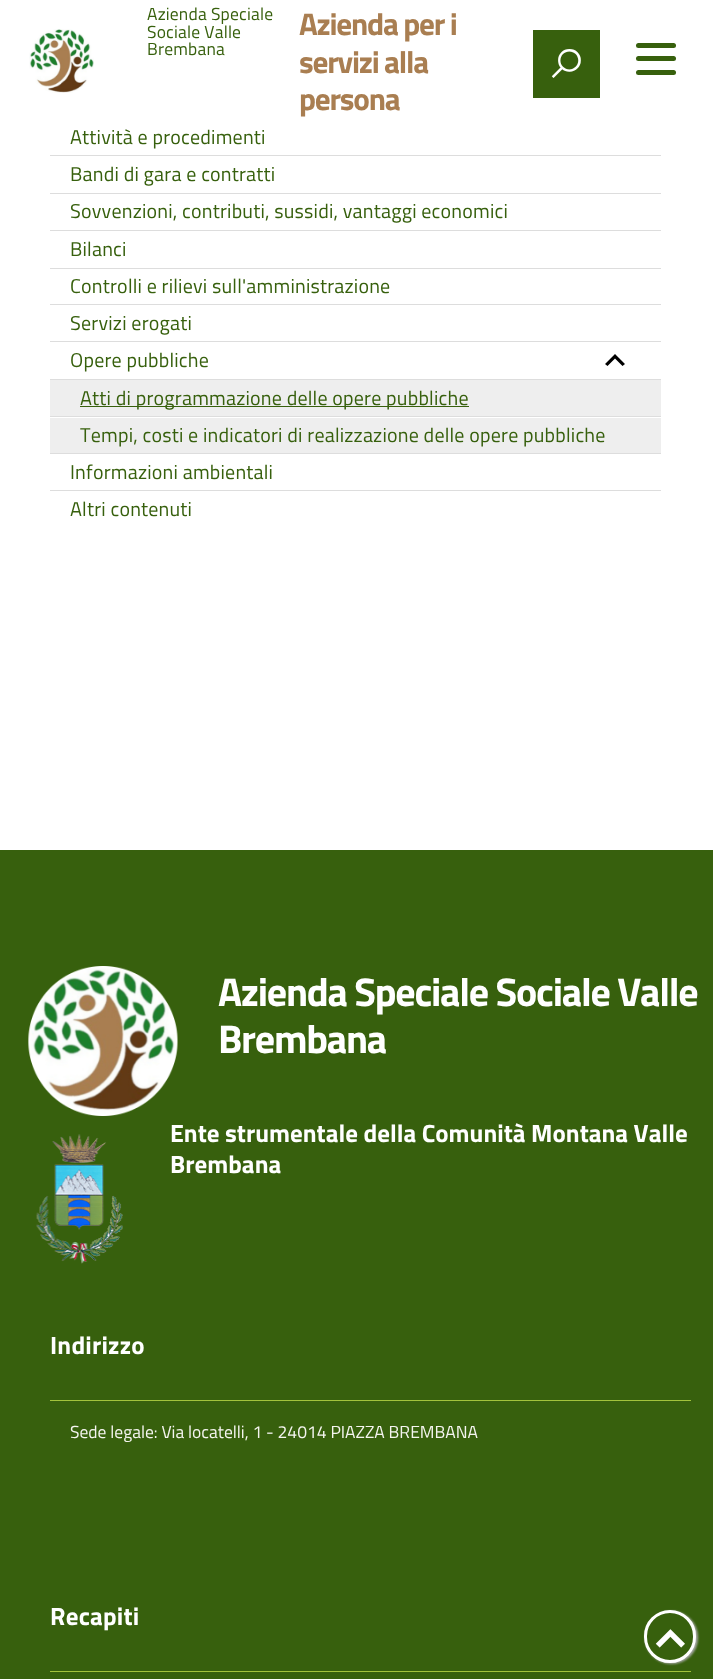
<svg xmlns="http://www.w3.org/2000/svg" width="713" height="1679">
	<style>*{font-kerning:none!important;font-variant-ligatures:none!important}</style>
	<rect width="100%" height="100%" fill="#FFFFFF" />
	<image x="29" y="29" width="65" height="64" href="assets/img1.png" />
	<g font-family="Titillium Web" font-size="17.5" letter-spacing="0.2" fill="#37600D">
		<text x="147" y="20">Azienda Speciale</text>
		<text x="147" y="38">Sociale Valle</text>
		<text x="147" y="55">Brembana</text>
	</g>
	<g font-family="Titillium Web" font-size="31.25" font-weight="700" letter-spacing="-1.25" fill="#A97E51">
		<text x="299" y="35">Azienda per i</text>
		<text x="299" y="73">servizi alla</text>
		<text x="299" y="110">persona</text>
	</g>
	<rect x="533" y="30" width="67" height="68" fill="#37600D" />
	<text x="552" y="76" font-family="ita" font-size="28" font-weight="700" fill="#FFFFFF">🔍</text>
	<rect x="636" y="56" width="40" height="5" rx="2.5" fill="#37600D" />
	<rect x="636" y="43" width="40" height="5" rx="2.5" fill="#37600D" />
	<rect x="636" y="70" width="40" height="5" rx="2.5" fill="#37600D" />
	<text x="70" y="144" font-family="Titillium Web" font-size="20" letter-spacing="0.2" fill="#37600D">Attività e procedimenti</text>
	<rect x="50" y="155" width="611" height="1" fill="#DDDDDD" />
	<text x="70" y="181" font-family="Titillium Web" font-size="20" letter-spacing="0.2" fill="#37600D">Bandi di gara e contratti</text>
	<rect x="50" y="193" width="611" height="1" fill="#DDDDDD" />
	<text x="70" y="218" font-family="Titillium Web" font-size="20" letter-spacing="0.2" fill="#37600D">Sovvenzioni, contributi, sussidi, vantaggi economici</text>
	<rect x="50" y="230" width="611" height="1" fill="#DDDDDD" />
	<text x="70" y="256" font-family="Titillium Web" font-size="20" letter-spacing="0.2" fill="#37600D">Bilanci</text>
	<rect x="50" y="268" width="611" height="1" fill="#DDDDDD" />
	<text x="70" y="293" font-family="Titillium Web" font-size="20" letter-spacing="0.2" fill="#37600D">Controlli e rilievi sull'amministrazione</text>
	<rect x="50" y="304" width="611" height="1" fill="#DDDDDD" />
	<text x="70" y="330" font-family="Titillium Web" font-size="20" letter-spacing="0.2" fill="#37600D">Servizi erogati</text>
	<rect x="50" y="341" width="611" height="1" fill="#DDDDDD" />
	<text x="70" y="367" font-family="Titillium Web" font-size="20" letter-spacing="0.2" fill="#37600D">Opere pubbliche</text>
	<path d="M622.5 366L625 364L615 354L605 364L607.5 366L615 358.5Z" fill="#000000" />
	<rect x="50" y="379" width="611" height="1" fill="#DDDDDD" />
	<rect x="50" y="380" width="611" height="36" fill="#EEEEEE" />
	<rect x="80" y="406" width="389" height="1" fill="#37600D" />
	<text x="80" y="405" font-family="Titillium Web" font-size="20" letter-spacing="0.2" fill="#37600D">Atti di programmazione delle opere pubbliche</text>
	<rect x="50" y="416" width="611" height="1" fill="#DDDDDD" />
	<rect x="50" y="418" width="611" height="35" fill="#EEEEEE" />
	<text x="80" y="442" font-family="Titillium Web" font-size="20" letter-spacing="0.2" fill="#37600D">Tempi, costi e indicatori di realizzazione delle opere pubbliche</text>
	<rect x="50" y="453" width="611" height="1" fill="#DDDDDD" />
	<text x="70" y="479" font-family="Titillium Web" font-size="20" letter-spacing="0.2" fill="#37600D">Informazioni ambientali</text>
	<rect x="50" y="490" width="611" height="1" fill="#DDDDDD" />
	<text x="70" y="516" font-family="Titillium Web" font-size="20" letter-spacing="0.2" fill="#37600D">Altri contenuti</text>
	<rect x="0" y="850" width="713" height="829" fill="#37600D" />
	<image x="28" y="966" width="150" height="150" href="assets/img2.png" />
	<g font-family="Titillium Web" font-size="40" font-weight="700" letter-spacing="-1.25" fill="#FFFFFF">
		<text x="218" y="1006">Azienda Speciale Sociale Valle</text>
		<text x="218" y="1053">Brembana</text>
	</g>
	<image x="36" y="1134" width="87" height="130" href="assets/img3.png" />
	<g font-family="Titillium Web" font-size="25" font-weight="700" fill="#FFFFFF">
		<text x="170" y="1142">Ente strumentale della Comunità Montana Valle</text>
		<text x="170" y="1173">Brembana</text>
	</g>
	<text x="50" y="1354" font-family="Titillium Web" font-size="25" font-weight="700" letter-spacing="0.2" fill="#FFFFFF">Indirizzo</text>
	<rect x="50" y="1400" width="641" height="1" fill="#A3C33C" />
	<text x="70" y="1438" font-family="Titillium Web" font-size="17.5" fill="#F5F5F0">Sede legale: Via locatelli, 1 - 24014 PIAZZA BREMBANA</text>
	<text x="50" y="1625" font-family="Titillium Web" font-size="25" font-weight="700" letter-spacing="0.2" fill="#FFFFFF">Recapiti</text>
	<rect x="50" y="1671" width="641" height="1" fill="#A3C33C" />
	<rect x="645" y="1611" width="53" height="53" rx="26.5" fill="#AAAAAA" filter="blur(1px)" />
	<rect x="645.5" y="1611.5" width="49" height="50" rx="24.5" fill="#37600D" stroke="#FFFFFF" stroke-width="3" />
	<text x="656" y="1651" font-family="ita" font-size="28" font-weight="700" fill="#FFFFFF">⏷</text>
</svg>
